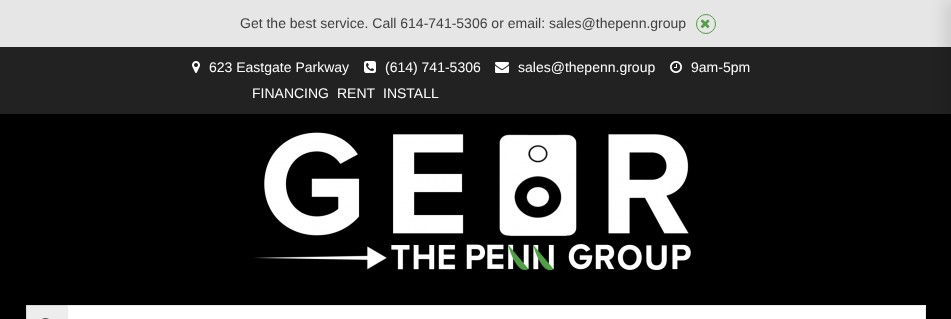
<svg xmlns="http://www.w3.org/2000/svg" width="951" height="319">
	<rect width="100%" height="100%" fill="#E6E6E6" />
	<text x="240" y="28" font-family="Arimo" font-size="14" fill="#404040">Get the best service. Call 614-741-5306 or email: sales@thepenn.group</text>
	<image x="700" y="19" width="10" height="10" href="assets/img1.png" />
	<circle cx="706" cy="24" r="9.5" fill="none" stroke="#51A045" />
	<rect x="0" y="47" width="951" height="67" fill="#222222" />
	<image x="192" y="61" width="8" height="12" href="assets/img2.png" />
	<text x="209" y="72" font-family="Arimo" font-size="14" fill="#FFFFFF">623 Eastgate Parkway</text>
	<image x="364" y="61" width="12" height="12" href="assets/img3.png" />
	<text x="385" y="72" font-family="Arimo" font-size="14" fill="#FFFFFF">(614) 741-5306</text>
	<image x="495" y="62" width="14" height="11" href="assets/img4.png" />
	<text x="518" y="72" font-family="Arimo" font-size="14" fill="#FFFFFF">sales@thepenn.group</text>
	<image x="670" y="61" width="12" height="12" href="assets/img5.png" />
	<g font-family="Arimo" font-size="14" fill="#FFFFFF">
		<text x="691" y="72">9am-5pm</text>
		<text x="252" y="98">FINANCING</text>
		<text x="337" y="98">RENT</text>
		<text x="383" y="98">INSTALL</text>
	</g>
	<rect x="0" y="114" width="951" height="205" fill="#000000" />
	<image x="254" y="132" width="437" height="139" href="assets/img6.png" />
	<rect x="26.5" y="305.5" width="41" height="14" fill="#EDEDED" stroke="#D8D8D8" />
	<image x="42" y="318" width="7" height="1" href="assets/img7.png" />
	<rect x="67.5" y="305.5" width="858" height="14" fill="#FFFFFF" stroke="#EBEBEB" />
	<rect x="944" y="0" width="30" height="319" fill="#000000" fill-opacity="0.1" filter="blur(7.5px)" />
</svg>
